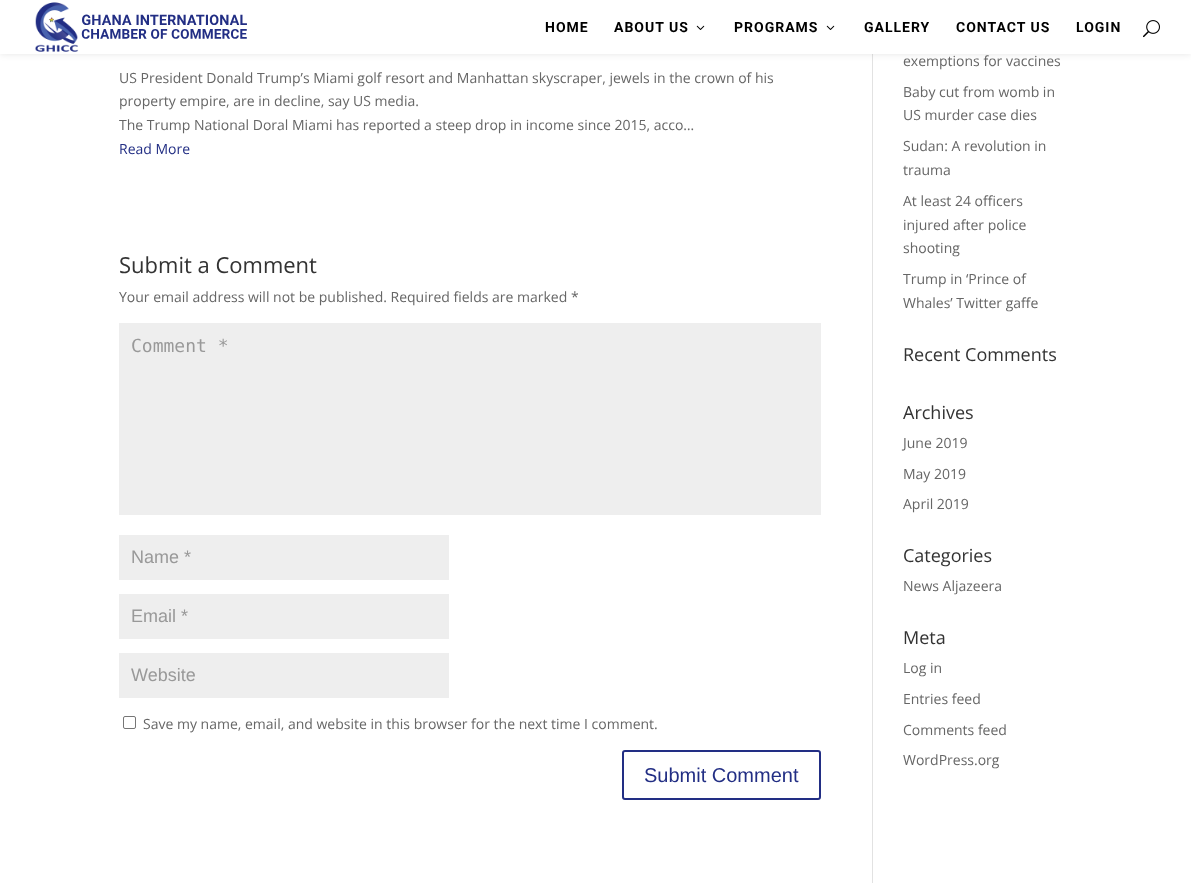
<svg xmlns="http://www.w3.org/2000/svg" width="1191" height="883">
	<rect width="100%" height="100%" fill="#FFFFFF" />
	<rect x="872" y="54" width="1" height="829" fill="#E2E2E2" />
	<rect x="0" y="0" width="1191" height="54" fill="#000000" fill-opacity="0.1" filter="blur(3.5px)" />
	<rect x="0" y="0" width="1191" height="54" fill="#FFFFFF" />
	<image x="35" y="2" width="212" height="50" href="assets/img1.png" />
	<g font-family="Roboto" font-size="14" font-weight="700" letter-spacing="1" fill="#000000">
		<text x="545" y="32">HOME</text>
		<text x="614" y="32">ABOUT US</text>
	</g>
	<image x="696" y="25" width="9" height="5" href="assets/img2.png" />
	<text x="734" y="32" font-family="Roboto" font-size="14" font-weight="700" letter-spacing="1" fill="#000000">PROGRAMS</text>
	<image x="826" y="25" width="9" height="5" href="assets/img2.png" />
	<g font-family="Roboto" font-size="14" font-weight="700" letter-spacing="1" fill="#000000">
		<text x="864" y="32">GALLERY</text>
		<text x="956" y="32">CONTACT US</text>
		<text x="1076" y="32">LOGIN</text>
	</g>
	<image x="1143" y="20" width="17" height="18" href="assets/img3.png" />
	<g font-family="Open Sans" font-size="14" fill="#666666">
		<text x="119" y="83">US President Donald Trump’s Miami golf resort and Manhattan skyscraper, jewels in the crown of his</text>
		<text x="119" y="106">property empire, are in decline, say US media.</text>
		<text x="119" y="130">The Trump National Doral Miami has reported a steep drop in income since 2015, acco…</text>
	</g>
	<text x="119" y="154" font-family="Open Sans" font-size="14" fill="#222E84">Read More</text>
	<text x="119" y="273" font-family="Open Sans" font-size="22" fill="#333333">Submit a Comment</text>
	<text x="119" y="302" font-family="Open Sans" font-size="14" fill="#666666">Your email address will not be published. Required fields are marked *</text>
	<rect x="119" y="323" width="702" height="192" fill="#EEEEEE" />
	<text x="131" y="352" font-family="DejaVu Sans Mono" font-size="18" fill="#999999">Comment *</text>
	<rect x="119" y="535" width="330" height="45" fill="#EEEEEE" />
	<text x="131" y="563" font-family="Liberation Sans" font-size="18" fill="#999999">Name *</text>
	<rect x="119" y="594" width="330" height="45" fill="#EEEEEE" />
	<text x="131" y="622" font-family="Liberation Sans" font-size="18" fill="#999999">Email *</text>
	<rect x="119" y="653" width="330" height="45" fill="#EEEEEE" />
	<text x="131" y="681" font-family="Liberation Sans" font-size="18" fill="#999999">Website</text>
	<rect x="123.5" y="716.5" width="12" height="12" rx="1.5" fill="none" stroke="#767676" />
	<text x="143" y="729" font-family="Open Sans" font-size="14" fill="#666666">Save my name, email, and website in this browser for the next time I comment.</text>
	<rect x="623" y="751" width="197" height="48" rx="2" fill="none" stroke="#222E84" stroke-width="2" />
	<text x="644" y="782" font-family="Liberation Sans" font-size="20" fill="#222E84">Submit Comment</text>
	<g font-family="Open Sans" font-size="14" fill="#666666">
		<text x="903" y="66">exemptions for vaccines</text>
		<text x="903" y="97">Baby cut from womb in</text>
		<text x="903" y="120">US murder case dies</text>
		<text x="903" y="151">Sudan: A revolution in</text>
		<text x="903" y="175">trauma</text>
		<text x="903" y="206">At least 24 officers</text>
		<text x="903" y="230">injured after police</text>
		<text x="903" y="253">shooting</text>
		<text x="903" y="284">Trump in ‘Prince of</text>
		<text x="903" y="308">Whales’ Twitter gaffe</text>
	</g>
	<g font-family="Open Sans" font-size="18" fill="#333333">
		<text x="903" y="361">Recent Comments</text>
		<text x="903" y="419">Archives</text>
	</g>
	<g font-family="Open Sans" font-size="14" fill="#666666">
		<text x="903" y="448">June 2019</text>
		<text x="903" y="479">May 2019</text>
		<text x="903" y="509">April 2019</text>
	</g>
	<text x="903" y="562" font-family="Open Sans" font-size="18" fill="#333333">Categories</text>
	<text x="903" y="591" font-family="Open Sans" font-size="14" fill="#666666">News Aljazeera</text>
	<text x="903" y="644" font-family="Open Sans" font-size="18" fill="#333333">Meta</text>
	<g font-family="Open Sans" font-size="14" fill="#666666">
		<text x="903" y="673">Log in</text>
		<text x="903" y="704">Entries feed</text>
		<text x="903" y="735">Comments feed</text>
		<text x="903" y="765">WordPress.org</text>
	</g>
</svg>
